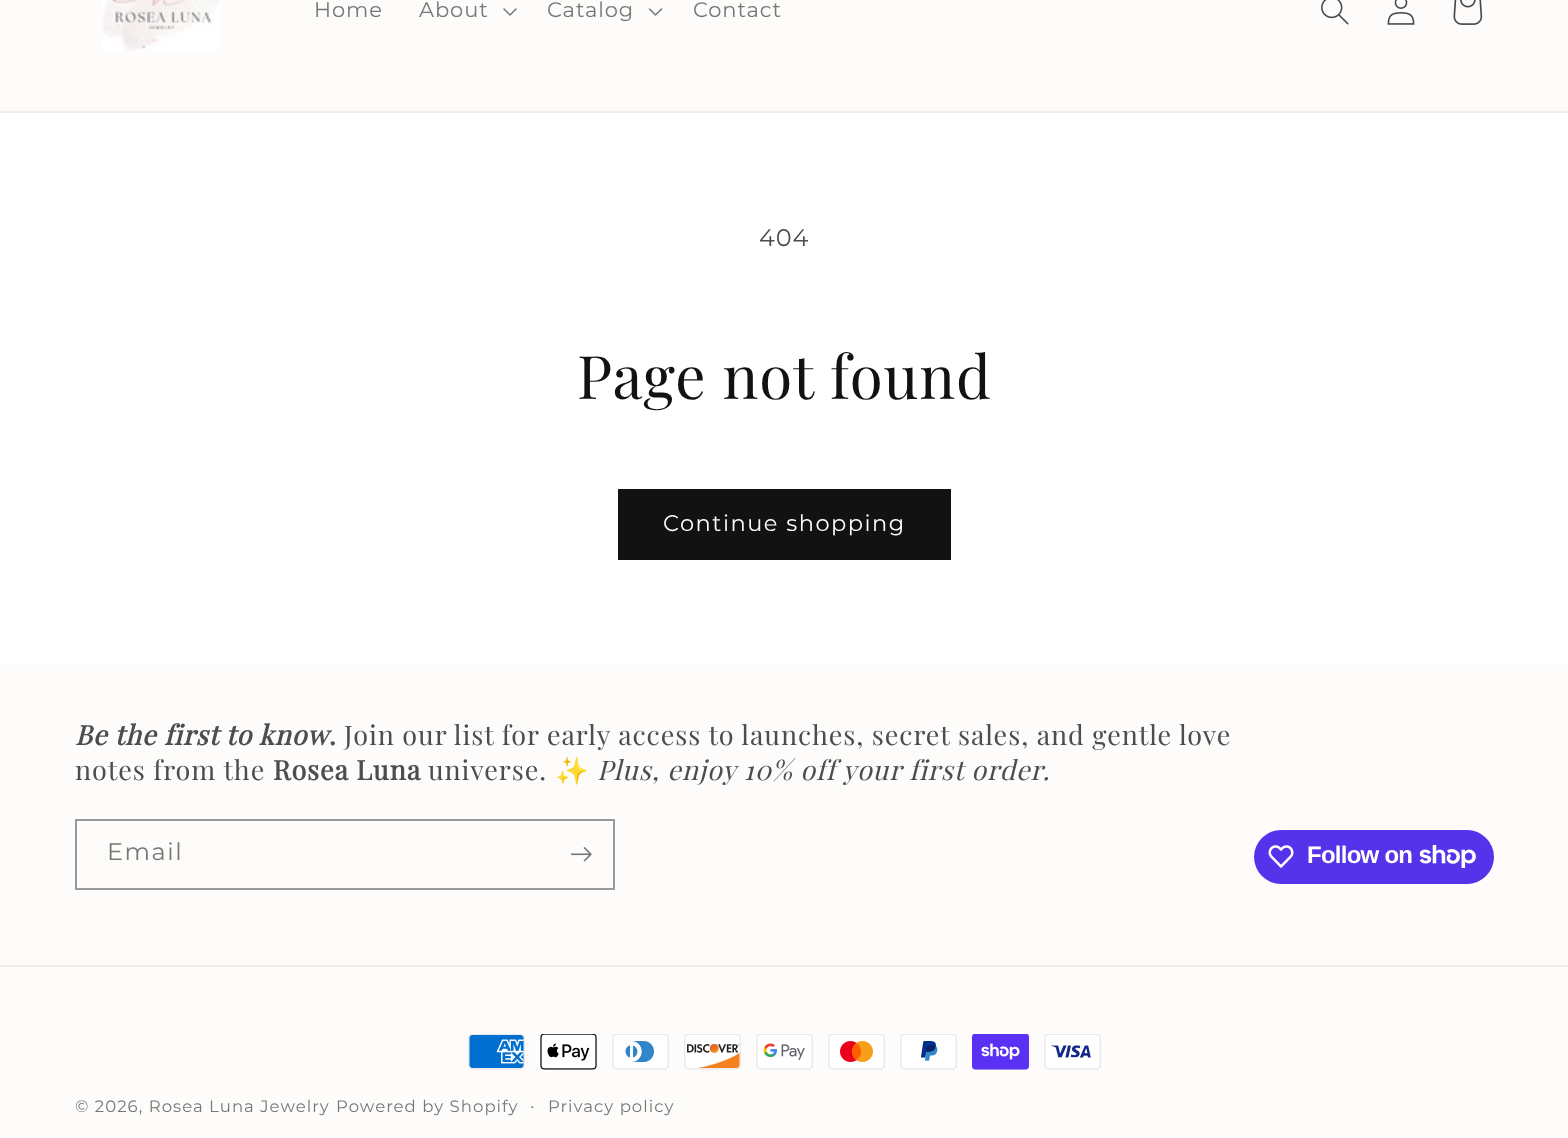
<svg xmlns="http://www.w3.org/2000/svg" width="1568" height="1138">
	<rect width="100%" height="100%" fill="#FFFFFF" />
	<rect x="0" y="0" width="1568" height="111" fill="#FDFCFB" />
	<rect x="0" y="111" width="1568" height="2" fill="#EFEEED" />
	<image x="102" y="0" width="118" height="51" href="assets/img1.png" />
	<g font-family="Montserrat" font-size="21" letter-spacing="0.9" fill="#777776">
		<text x="314" y="17">Home</text>
		<text x="419" y="17">About</text>
	</g>
	<image x="503" y="8" width="14" height="8" href="assets/img2.png" />
	<text x="547" y="17" font-family="Montserrat" font-size="21" letter-spacing="0.9" fill="#777776">Catalog</text>
	<image x="648" y="8" width="15" height="8" href="assets/img3.png" />
	<text x="693" y="17" font-family="Montserrat" font-size="21" letter-spacing="0.9" fill="#777776">Contact</text>
	<image x="1321" y="0" width="28" height="25" href="assets/img4.png" />
	<image x="1387" y="0" width="28" height="25" href="assets/img5.png" />
	<image x="1453" y="0" width="30" height="25" href="assets/img6.png" />
	<text x="759" y="246" font-family="Montserrat" font-size="24" letter-spacing="0.9" fill="#4D4D4D">404</text>
	<text x="577" y="399" font-family="Playfair Display" font-size="60" letter-spacing="0.9" fill="#121212">Page not found</text>
	<rect x="618" y="489" width="333" height="71" fill="#121212" />
	<text x="663" y="531" font-family="Montserrat" font-size="22.5" letter-spacing="1.5" fill="#FFFFFF">Continue shopping</text>
	<rect x="0" y="665" width="1568" height="473" fill="#FDFCFB" />
	<text x="75" y="745" font-family="Playfair Display" font-size="27" font-weight="700" font-style="italic" letter-spacing="0.9" fill="#4D4D4D">Be the first to know</text>
	<text x="344" y="745" font-family="Playfair Display" font-size="27" letter-spacing="0.9" fill="#4D4D4D">Join our list for early access to launches, secret sales, and gentle love</text>
	<text x="329" y="745" font-family="Playfair Display" font-size="27" font-weight="700" letter-spacing="0.9" fill="#4D4D4D">.</text>
	<text x="75" y="780" font-family="Playfair Display" font-size="27" letter-spacing="0.9" fill="#4D4D4D">notes from the</text>
	<text x="273" y="780" font-family="Playfair Display" font-size="27" font-weight="700" letter-spacing="0.9" fill="#4D4D4D">Rosea Luna</text>
	<text x="428" y="780" font-family="Playfair Display" font-size="27" letter-spacing="0.9" fill="#4D4D4D">universe.</text>
	<text x="555" y="780" font-family="Noto Color Emoji" font-size="27" letter-spacing="0.9" fill="#4D4D4D">✨</text>
	<text x="597" y="780" font-family="Playfair Display" font-size="27" font-style="italic" letter-spacing="0.9" fill="#4D4D4D">Plus, enjoy 10% off your first order.</text>
	<rect x="76" y="820" width="538" height="69" fill="none" stroke="#9B9A9A" stroke-width="2" />
	<text x="107" y="860" font-family="Montserrat" font-size="24" letter-spacing="1.5" fill="#777776">Email</text>
	<image x="570" y="847" width="22" height="15" href="assets/img7.png" />
	<rect x="1254" y="830" width="240" height="54" rx="27" fill="#5433EB" />
	<image x="1268" y="845" width="26" height="23" href="assets/img8.png" />
	<text x="1307" y="863" font-family="Liberation Sans" font-size="24" font-weight="700" letter-spacing="-0.75" fill="#FFFFFF">Follow on</text>
	<image x="1419" y="845" width="57" height="23" href="assets/img9.png" />
	<rect x="0" y="965" width="1568" height="2" fill="#EFEEED" />
	<image x="468" y="1034" width="57" height="36" href="assets/img10.png" />
	<image x="540" y="1034" width="57" height="36" href="assets/img11.png" />
	<image x="612" y="1034" width="57" height="36" href="assets/img12.png" />
	<image x="684" y="1034" width="57" height="36" href="assets/img13.png" />
	<image x="756" y="1034" width="57" height="36" href="assets/img14.png" />
	<image x="828" y="1034" width="57" height="36" href="assets/img15.png" />
	<image x="900" y="1034" width="57" height="36" href="assets/img16.png" />
	<image x="972" y="1034" width="57" height="36" href="assets/img17.png" />
	<image x="1044" y="1034" width="57" height="36" href="assets/img18.png" />
	<g font-family="Montserrat" font-size="16.5" letter-spacing="1.05" fill="#777776">
		<text x="75" y="1112">© 2026, Rosea Luna Jewelry</text>
		<text x="336" y="1112">Powered by Shopify</text>
	</g>
	<text x="530" y="1112" font-family="Montserrat" font-size="18" letter-spacing="1.05" fill="#777776">·</text>
	<text x="548" y="1112" font-family="Montserrat" font-size="16.5" letter-spacing="1.05" fill="#777776">Privacy policy</text>
</svg>
